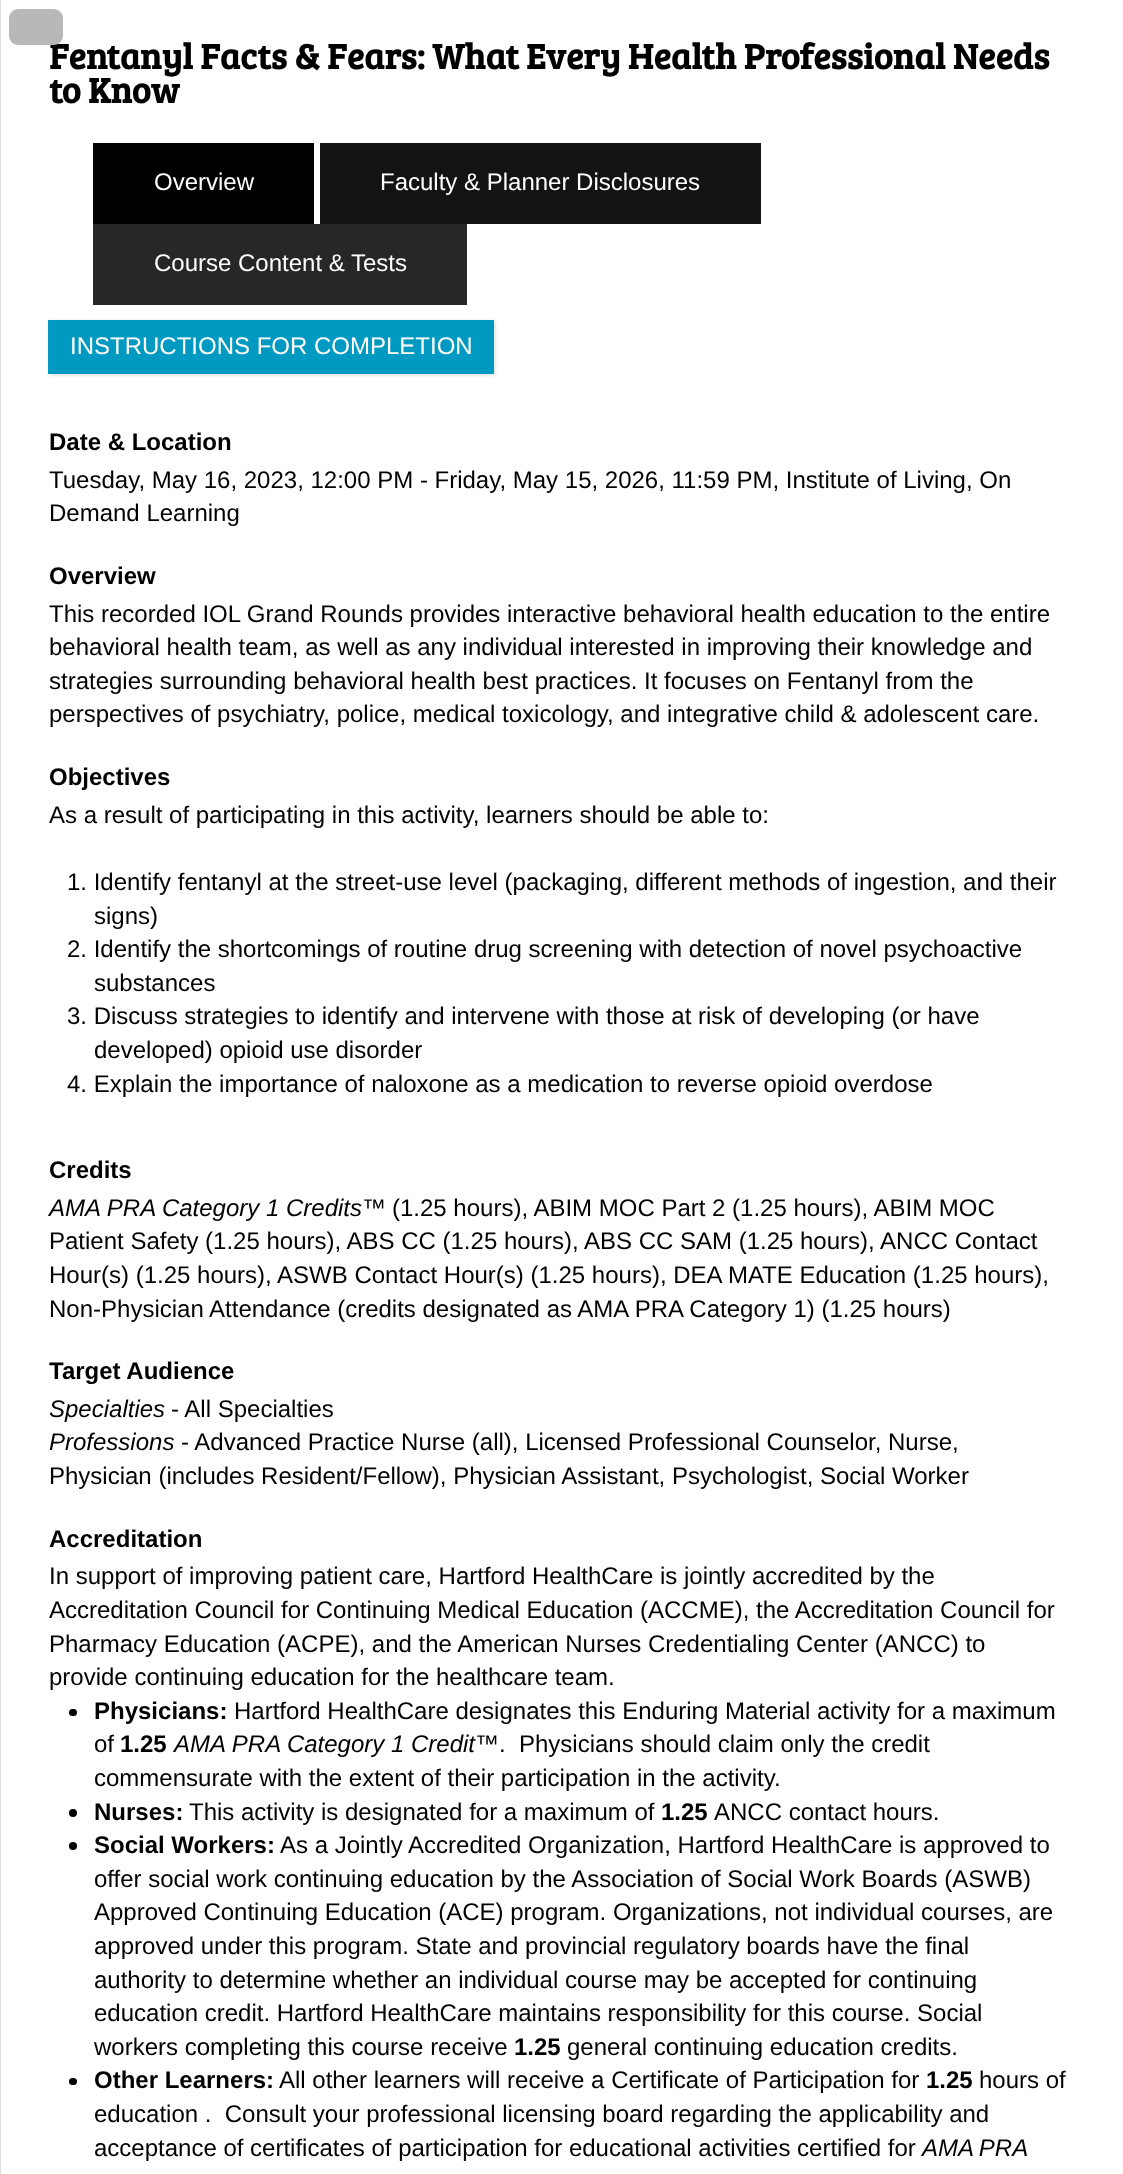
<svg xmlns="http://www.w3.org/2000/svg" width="1123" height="2174">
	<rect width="100%" height="100%" fill="#FFFFFF" />
	<rect x="0" y="0" width="1" height="2174" fill="#DFDFDF" />
	<text x="49" y="69" font-family="Bree Serif" font-size="36" font-weight="700" fill="#000000">Fentanyl Facts &amp; Fears: What Every Health Professional Needs</text>
	<rect x="9" y="9" width="54" height="36" rx="9" fill="#B8B8B8" />
	<text x="49" y="103" font-family="Bree Serif" font-size="36" font-weight="700" fill="#000000">to Know</text>
	<rect x="93" y="143" width="221" height="81" fill="#000000" />
	<text x="154" y="190" font-family="Liberation Sans" font-size="24" fill="#FFFFFF">Overview</text>
	<rect x="320" y="143" width="441" height="81" fill="#131313" />
	<text x="380" y="190" font-family="Liberation Sans" font-size="24" fill="#FFFFFF">Faculty &amp; Planner Disclosures</text>
	<rect x="93" y="224" width="374" height="81" fill="#272727" />
	<text x="154" y="271" font-family="Liberation Sans" font-size="24" fill="#FFFFFF">Course Content &amp; Tests</text>
	<rect x="50" y="321" width="445" height="54" fill="#000000" fill-opacity="0.15" filter="blur(2px)" />
	<rect x="48" y="320" width="446" height="54" fill="#0099C1" />
	<text x="70" y="354" font-family="Liberation Sans" font-size="24" fill="#FFFFFF">INSTRUCTIONS FOR COMPLETION</text>
	<text x="49" y="450" font-family="Liberation Sans" font-size="24" font-weight="700" fill="#000000">Date &amp; Location</text>
	<g font-family="Liberation Sans" font-size="24" fill="#000000">
		<text x="49" y="488">Tuesday, May 16, 2023, 12:00 PM - Friday, May 15, 2026, 11:59 PM, Institute of Living, On</text>
		<text x="49" y="521">Demand Learning</text>
	</g>
	<text x="49" y="584" font-family="Liberation Sans" font-size="24" font-weight="700" fill="#000000">Overview</text>
	<g font-family="Liberation Sans" font-size="24" fill="#000000">
		<text x="49" y="622">This recorded IOL Grand Rounds provides interactive behavioral health education to the entire</text>
		<text x="49" y="655">behavioral health team, as well as any individual interested in improving their knowledge and</text>
		<text x="49" y="689">strategies surrounding behavioral health best practices. It focuses on Fentanyl from the</text>
		<text x="49" y="722">perspectives of psychiatry, police, medical toxicology, and integrative child &amp; adolescent care.</text>
	</g>
	<text x="49" y="785" font-family="Liberation Sans" font-size="24" font-weight="700" fill="#000000">Objectives</text>
	<g font-family="Liberation Sans" font-size="24" fill="#000000">
		<text x="49" y="823">As a result of participating in this activity, learners should be able to:</text>
		<text x="67" y="890">1. Identify fentanyl at the street-use level (packaging, different methods of ingestion, and their</text>
		<text x="94" y="924">signs)</text>
		<text x="67" y="957">2. Identify the shortcomings of routine drug screening with detection of novel psychoactive</text>
		<text x="94" y="991">substances</text>
		<text x="67" y="1024">3. Discuss strategies to identify and intervene with those at risk of developing (or have</text>
		<text x="94" y="1058">developed) opioid use disorder</text>
		<text x="67" y="1092">4. Explain the importance of naloxone as a medication to reverse opioid overdose</text>
	</g>
	<text x="49" y="1178" font-family="Liberation Sans" font-size="24" font-weight="700" fill="#000000">Credits</text>
	<text x="49" y="1216" font-family="Liberation Sans" font-size="24" font-style="italic" fill="#000000">AMA PRA Category 1 Credits™</text>
	<g font-family="Liberation Sans" font-size="24" fill="#000000">
		<text x="392" y="1216">(1.25 hours), ABIM MOC Part 2 (1.25 hours), ABIM MOC</text>
		<text x="49" y="1249">Patient Safety (1.25 hours), ABS CC (1.25 hours), ABS CC SAM (1.25 hours), ANCC Contact</text>
		<text x="49" y="1283">Hour(s) (1.25 hours), ASWB Contact Hour(s) (1.25 hours), DEA MATE Education (1.25 hours),</text>
		<text x="49" y="1317">Non-Physician Attendance (credits designated as AMA PRA Category 1) (1.25 hours)</text>
	</g>
	<text x="49" y="1379" font-family="Liberation Sans" font-size="24" font-weight="700" fill="#000000">Target Audience</text>
	<text x="49" y="1417" font-family="Liberation Sans" font-size="24" font-style="italic" fill="#000000">Specialties</text>
	<text x="171" y="1417" font-family="Liberation Sans" font-size="24" fill="#000000">- All Specialties</text>
	<text x="49" y="1450" font-family="Liberation Sans" font-size="24" font-style="italic" fill="#000000">Professions</text>
	<g font-family="Liberation Sans" font-size="24" fill="#000000">
		<text x="181" y="1450">- Advanced Practice Nurse (all), Licensed Professional Counselor, Nurse,</text>
		<text x="49" y="1484">Physician (includes Resident/Fellow), Physician Assistant, Psychologist, Social Worker</text>
	</g>
	<text x="49" y="1547" font-family="Liberation Sans" font-size="24" font-weight="700" fill="#000000">Accreditation</text>
	<g font-family="Liberation Sans" font-size="24" fill="#000000">
		<text x="49" y="1584">In support of improving patient care, Hartford HealthCare is jointly accredited by the</text>
		<text x="49" y="1618">Accreditation Council for Continuing Medical Education (ACCME), the Accreditation Council for</text>
		<text x="49" y="1652">Pharmacy Education (ACPE), and the American Nurses Credentialing Center (ANCC) to</text>
		<text x="49" y="1685">provide continuing education for the healthcare team.</text>
	</g>
	<rect x="69" y="1709" width="8" height="7" rx="3.5" fill="#000000" />
	<text x="94" y="1719" font-family="Liberation Sans" font-size="24" font-weight="700" fill="#000000">Physicians:</text>
	<g font-family="Liberation Sans" font-size="24" fill="#000000">
		<text x="234" y="1719">Hartford HealthCare designates this Enduring Material activity for a maximum</text>
		<text x="94" y="1752">of</text>
	</g>
	<text x="120" y="1752" font-family="Liberation Sans" font-size="24" font-weight="700" fill="#000000">1.25</text>
	<text x="174" y="1752" font-family="Liberation Sans" font-size="24" font-style="italic" fill="#000000">AMA PRA Category 1 Credit</text>
	<g font-family="Liberation Sans" font-size="24" fill="#000000">
		<text x="475" y="1752" xml:space="preserve">™.  Physicians should claim only the credit</text>
		<text x="94" y="1786">commensurate with the extent of their participation in the activity.</text>
	</g>
	<circle cx="73" cy="1813" r="4" fill="#000000" />
	<text x="94" y="1820" font-family="Liberation Sans" font-size="24" font-weight="700" fill="#000000">Nurses:</text>
	<text x="189" y="1820" font-family="Liberation Sans" font-size="24" fill="#000000">This activity is designated for a maximum of</text>
	<text x="661" y="1820" font-family="Liberation Sans" font-size="24" font-weight="700" fill="#000000">1.25</text>
	<text x="714" y="1820" font-family="Liberation Sans" font-size="24" fill="#000000">ANCC contact hours.</text>
	<circle cx="73" cy="1846" r="4" fill="#000000" />
	<text x="94" y="1853" font-family="Liberation Sans" font-size="24" font-weight="700" fill="#000000">Social Workers:</text>
	<g font-family="Liberation Sans" font-size="24" fill="#000000">
		<text x="280" y="1853">As a Jointly Accredited Organization, Hartford HealthCare is approved to</text>
		<text x="94" y="1887">offer social work continuing education by the Association of Social Work Boards (ASWB)</text>
		<text x="94" y="1920">Approved Continuing Education (ACE) program. Organizations, not individual courses, are</text>
		<text x="94" y="1954">approved under this program. State and provincial regulatory boards have the final</text>
		<text x="94" y="1988">authority to determine whether an individual course may be accepted for continuing</text>
		<text x="94" y="2021">education credit. Hartford HealthCare maintains responsibility for this course. Social</text>
		<text x="94" y="2055">workers completing this course receive</text>
	</g>
	<text x="514" y="2055" font-family="Liberation Sans" font-size="24" font-weight="700" fill="#000000">1.25</text>
	<text x="567" y="2055" font-family="Liberation Sans" font-size="24" fill="#000000">general continuing education credits.</text>
	<rect x="69" y="2078" width="8" height="7" rx="3.5" fill="#000000" />
	<text x="94" y="2088" font-family="Liberation Sans" font-size="24" font-weight="700" fill="#000000">Other Learners:</text>
	<text x="279" y="2088" font-family="Liberation Sans" font-size="24" fill="#000000">All other learners will receive a Certificate of Participation for</text>
	<text x="926" y="2088" font-family="Liberation Sans" font-size="24" font-weight="700" fill="#000000">1.25</text>
	<g font-family="Liberation Sans" font-size="24" fill="#000000">
		<text x="979" y="2088">hours of</text>
		<text x="94" y="2122" xml:space="preserve">education .  Consult your professional licensing board regarding the applicability and</text>
		<text x="94" y="2156">acceptance of certificates of participation for educational activities certified for</text>
	</g>
	<text x="922" y="2156" word-spacing="-1" font-family="Liberation Sans" font-size="24" font-style="italic" fill="#000000">AMA PRA</text>
</svg>
